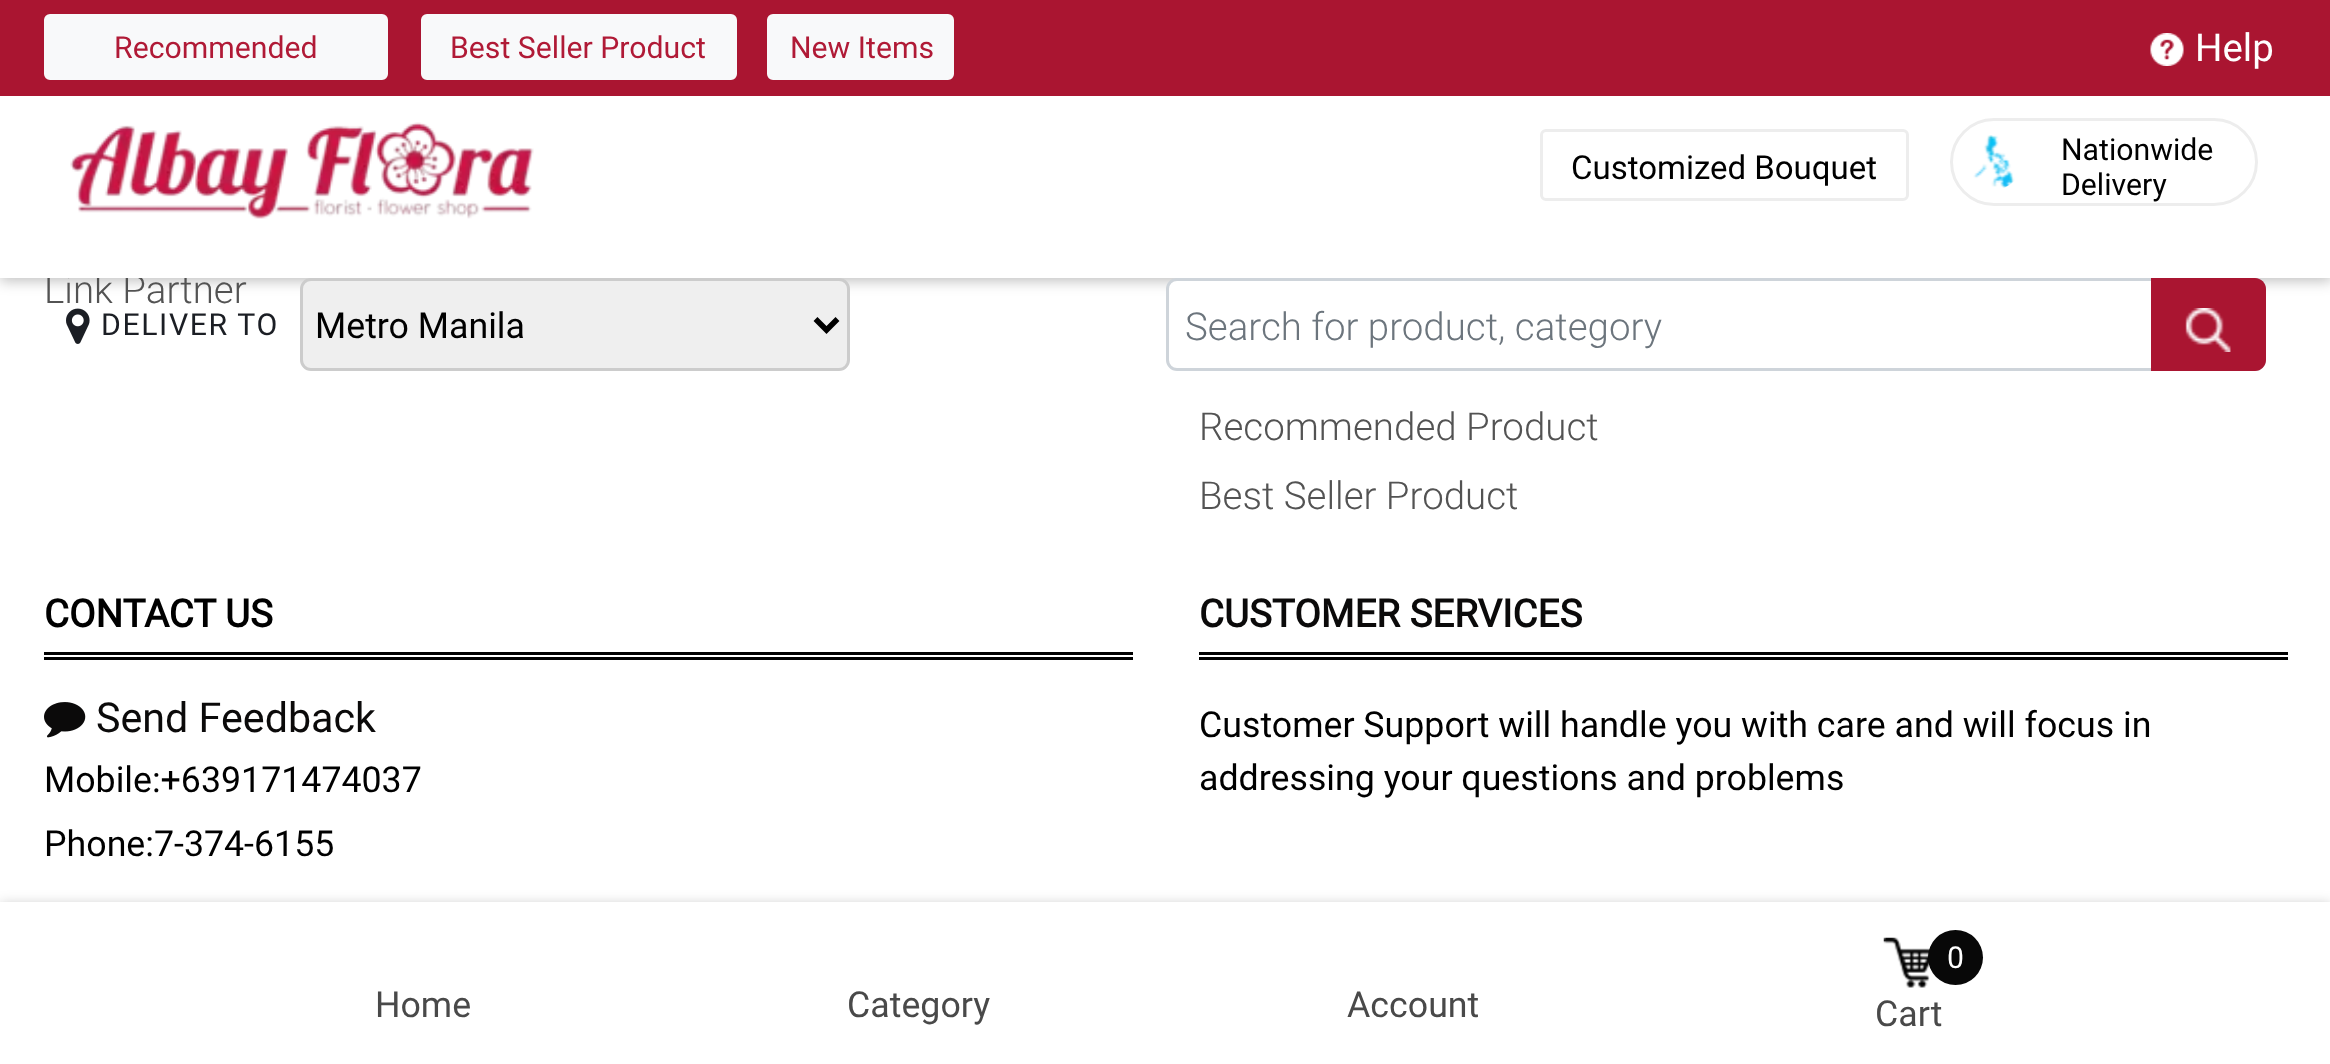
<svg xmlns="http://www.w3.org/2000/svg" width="2330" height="1064">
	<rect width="100%" height="100%" fill="#FFFFFF" />
	<rect x="0" y="3" width="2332" height="278" fill="#000000" fill-opacity="0.25" filter="blur(7px)" />
	<text x="44" y="303" font-family="Roboto" font-size="38.5" font-weight="300" fill="#535353">Link Partner</text>
	<rect x="0" y="96" width="2330" height="182" fill="#FFFFFF" />
	<rect x="0" y="0" width="2330" height="96" fill="#AA1531" />
	<rect x="45.5" y="15.5" width="341" height="63" rx="4.5" fill="#F8F9FA" stroke="#F8F9FA" stroke-width="3" />
	<text x="114" y="58" font-family="Roboto" font-size="30.25" fill="#B01A36">Recommended</text>
	<rect x="422.5" y="15.5" width="313" height="63" rx="4.5" fill="#F8F9FA" stroke="#F8F9FA" stroke-width="3" />
	<text x="450" y="58" font-family="Roboto" font-size="30.25" fill="#B01A36">Best Seller Product</text>
	<rect x="768.5" y="15.5" width="184" height="63" rx="4.5" fill="#F8F9FA" stroke="#F8F9FA" stroke-width="3" />
	<text x="790" y="58" font-family="Roboto" font-size="30.25" fill="#B01A36">New Items</text>
	<image x="2150" y="33" width="34" height="33" href="assets/img1.png" />
	<text x="2195" y="61" font-family="Roboto" font-size="38.5" fill="#FFFFFF">Help</text>
	<image x="70" y="122" width="464" height="97" href="assets/img2.png" />
	<rect x="1541.5" y="130.5" width="366" height="69" rx="4.5" fill="none" stroke="#EDEDED" stroke-width="3" />
	<text x="1571" y="179" font-family="Roboto" font-size="33" fill="#000000">Customized Bouquet</text>
	<rect x="1951.5" y="119.5" width="305" height="85" rx="42.5" fill="none" stroke="#EDEDED" stroke-width="3" />
	<image x="1973" y="135" width="42" height="53" href="assets/img3.png" />
	<g font-family="Roboto" font-size="30.25" fill="#000000">
		<text x="2061" y="160">Nationwide</text>
		<text x="2061" y="195">Delivery</text>
	</g>
	<image x="66" y="308" width="24" height="36" href="assets/img4.png" />
	<text x="101" y="335" font-family="Roboto" font-size="30.25" letter-spacing="1.6" fill="#1B1E24">DELIVER TO</text>
	<rect x="301.5" y="279.5" width="547" height="90" rx="9.5" fill="#EFEFEF" stroke="#CCCCCC" stroke-width="3" />
	<path d="M815.5 319L826.5 330L837.5 319" fill="none" stroke="#000000" stroke-width="5.5" />
	<text x="315" y="338" font-family="Roboto" font-size="35.75" fill="#000000">Metro Manila</text>
	<rect x="1167.5" y="279.5" width="1097" height="90" rx="9.5" fill="#FFFFFF" stroke="#CED4DA" stroke-width="3" />
	<text x="1185" y="340" font-family="Roboto" font-size="38.5" font-weight="300" fill="#6C757D">Search for product, category</text>
	<path d="M2151 278H2255C2261 278 2266 283 2266 289V360C2266 366 2261 371 2255 371H2151Z" fill="#AA1531" />
	<image x="2185" y="308" width="46" height="44" href="assets/img5.png" />
	<g font-family="Roboto" font-size="38.5" font-weight="300" fill="#535353">
		<text x="1199" y="440">Recommended Product</text>
		<text x="1199" y="509">Best Seller Product</text>
	</g>
	<rect x="44" y="652" width="1089" height="3" fill="#000000" />
	<rect x="44" y="657" width="1089" height="3" fill="#000000" />
	<text x="44" y="627" font-family="Roboto" font-size="38.5" font-weight="700" fill="#000000">CONTACT US</text>
	<image x="44" y="702" width="42" height="36" href="assets/img6.png" />
	<text x="96" y="732" font-family="Roboto" font-size="41.25" fill="#0B0A0A">Send Feedback</text>
	<g font-family="Roboto" font-size="35.75" fill="#000000">
		<text x="44" y="792">Mobile:+639171474037</text>
		<text x="44" y="856">Phone:7-374-6155</text>
	</g>
	<rect x="1199" y="652" width="1089" height="3" fill="#000000" />
	<rect x="1199" y="657" width="1089" height="3" fill="#000000" />
	<text x="1199" y="627" font-family="Roboto" font-size="38.5" font-weight="700" fill="#0B0A0A">CUSTOMER SERVICES</text>
	<g font-family="Roboto" font-size="35.75" fill="#000000">
		<text x="1199" y="737">Customer Support will handle you with care and will focus in</text>
		<text x="1199" y="790">addressing your questions and problems</text>
	</g>
	<rect x="0" y="905" width="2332" height="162" fill="#000000" fill-opacity="0.25" filter="blur(7px)" />
	<rect x="0" y="902" width="2330" height="162" fill="#FFFFFF" />
	<g font-family="Roboto" font-size="35.75" fill="#494949">
		<text x="375" y="1017">Home</text>
		<text x="847" y="1017">Category</text>
		<text x="1347" y="1017">Account</text>
	</g>
	<image x="1883" y="937" width="47" height="51" href="assets/img7.png" />
	<circle cx="1955.5" cy="957.5" r="27.5" fill="#080808" />
	<text x="1947" y="968" font-family="Roboto" font-size="30.25" fill="#FFFFFF">0</text>
	<text x="1875" y="1026" font-family="Roboto" font-size="35.75" fill="#494949">Cart</text>
</svg>
